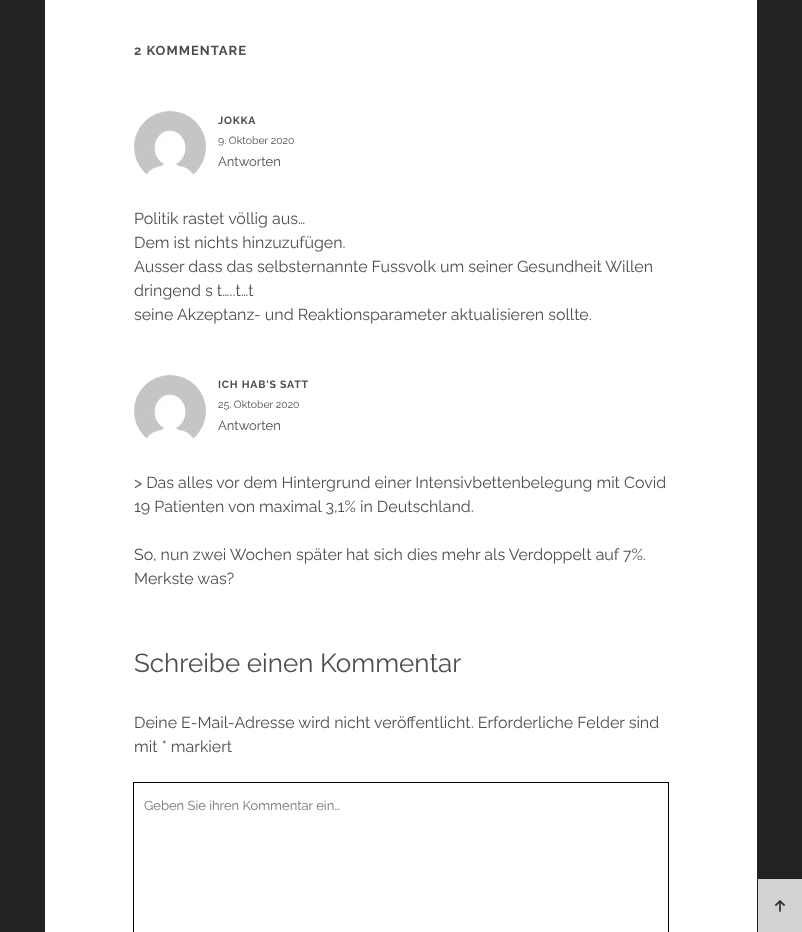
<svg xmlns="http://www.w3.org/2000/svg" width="802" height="932">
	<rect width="100%" height="100%" fill="#222222" />
	<rect x="45" y="0" width="712" height="932" fill="#FFFFFF" />
	<text x="134" y="55" font-family="Raleway" font-size="13" font-weight="700" letter-spacing="1" fill="#4D4D4D">2 KOMMENTARE</text>
	<image x="134" y="111" width="72" height="64" href="assets/img1.png" />
	<text x="218" y="124" font-family="Raleway" font-size="10.5" font-weight="700" letter-spacing="0.8" fill="#4D4D4D">JOKKA</text>
	<text x="218" y="144" font-family="Raleway" font-size="10.5" fill="#4D4D4D">9. Oktober 2020</text>
	<text x="218" y="166" font-family="Raleway" font-size="13" fill="#4D4D4D">Antworten</text>
	<g font-family="Raleway" font-size="16" fill="#4D4D4D">
		<text x="134" y="224">Politik rastet völlig aus…</text>
		<text x="134" y="248">Dem ist nichts hinzuzufügen.</text>
		<text x="134" y="272">Ausser dass das selbsternannte Fussvolk um seiner Gesundheit Willen</text>
		<text x="134" y="296">dringend s t…..t…t</text>
		<text x="134" y="320">seine Akzeptanz- und Reaktionsparameter aktualisieren sollte.</text>
	</g>
	<image x="134" y="375" width="72" height="64" href="assets/img2.png" />
	<text x="218" y="388" font-family="Raleway" font-size="10.5" font-weight="700" letter-spacing="0.8" fill="#4D4D4D">ICH HAB'S SATT</text>
	<text x="218" y="408" font-family="Raleway" font-size="10.5" fill="#4D4D4D">25. Oktober 2020</text>
	<text x="218" y="430" font-family="Raleway" font-size="13" fill="#4D4D4D">Antworten</text>
	<g font-family="Raleway" font-size="16" fill="#4D4D4D">
		<text x="134" y="488">&gt; Das alles vor dem Hintergrund einer Intensivbettenbelegung mit Covid</text>
		<text x="134" y="512">19 Patienten von maximal 3,1% in Deutschland.</text>
		<text x="134" y="560">So, nun zwei Wochen später hat sich dies mehr als Verdoppelt auf 7%.</text>
		<text x="134" y="584">Merkste was?</text>
	</g>
	<text x="134" y="672" font-family="Raleway" font-size="26" fill="#4D4D4D">Schreibe einen Kommentar</text>
	<g font-family="Raleway" font-size="16" fill="#4D4D4D">
		<text x="134" y="728">Deine E-Mail-Adresse wird nicht veröffentlicht. Erforderliche Felder sind</text>
		<text x="134" y="752">mit * markiert</text>
	</g>
	<rect x="133.5" y="782.5" width="535" height="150" fill="none" stroke="#000000" />
	<text x="144" y="810" font-family="Raleway" font-size="13" fill="#757575">Geben Sie ihren Kommentar ein…</text>
	<rect x="758" y="879" width="44" height="53" fill="#D3D3D3" />
	<image x="775" y="900" width="10" height="12" href="assets/img3.png" />
</svg>
